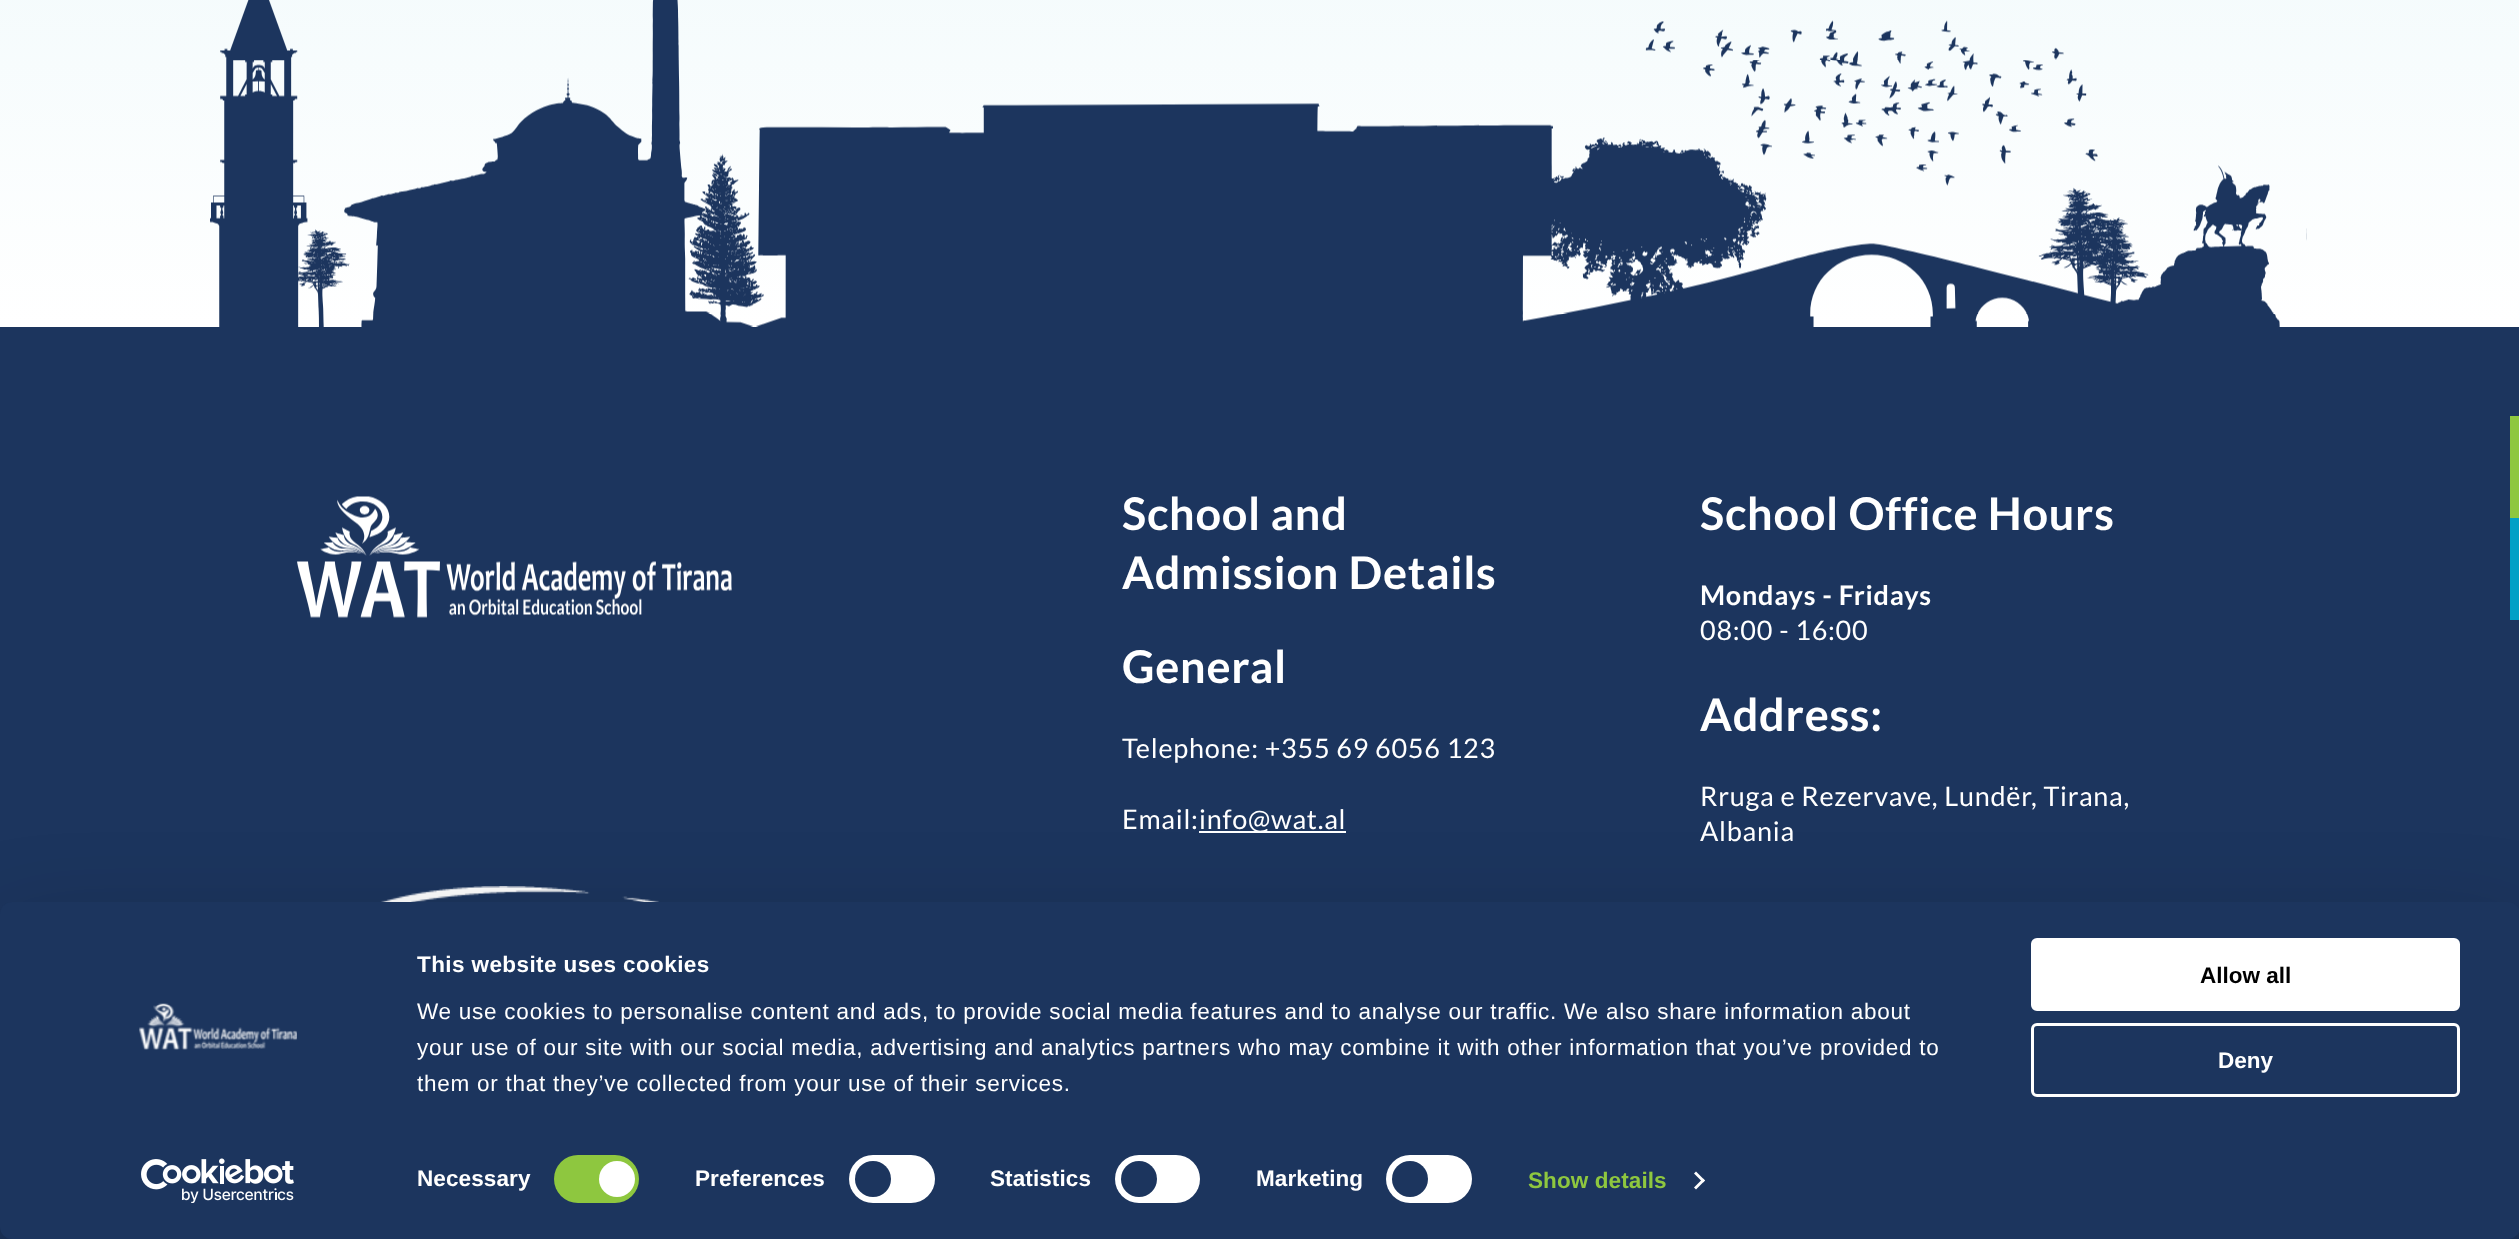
<svg xmlns="http://www.w3.org/2000/svg" width="2519" height="1239">
	<defs>
		<linearGradient id="g1" gradientUnits="userSpaceOnUse" x1="1260" y1="-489" x2="1260" y2="327"><stop offset="0" stop-color="#E6F6F9" /><stop offset="1" stop-color="#FFFFFF" /></linearGradient>
	</defs>
	<rect width="100%" height="100%" fill="#1C355E" />
	<rect x="0" y="0" width="2519" height="327" fill="url(#g1)" />
	<image x="210" y="0" width="2097" height="327" href="assets/img1.png" />
	<image x="297" y="496" width="435" height="122" href="assets/img2.png" />
	<image x="381" y="886" width="278" height="16" href="assets/img3.png" />
	<g font-family="Lato" font-size="45" font-weight="700" letter-spacing="0.75" fill="#FFFFFF">
		<text x="1122" y="530">School and</text>
		<text x="1122" y="589">Admission Details</text>
		<text x="1122" y="683">General</text>
	</g>
	<g font-family="Lato" font-size="27" letter-spacing="0.75" fill="#FFFFFF">
		<text x="1122" y="758">Telephone: +355 69 6056 123</text>
		<text x="1122" y="829">Email:</text>
	</g>
	<rect x="1199" y="831" width="147" height="2" fill="#FFFFFF" />
	<text x="1199" y="829" font-family="Lato" font-size="27" letter-spacing="0.75" fill="#FFFFFF">info@wat.al</text>
	<text x="1700" y="530" font-family="Lato" font-size="45" font-weight="700" letter-spacing="0.75" fill="#FFFFFF">School Office Hours</text>
	<text x="1700" y="605" font-family="Lato" font-size="27" font-weight="700" letter-spacing="0.75" fill="#FFFFFF">Mondays - Fridays</text>
	<text x="1700" y="640" font-family="Lato" font-size="27" letter-spacing="0.75" fill="#FFFFFF">08:00 - 16:00</text>
	<text x="1700" y="731" font-family="Lato" font-size="45" font-weight="700" letter-spacing="0.75" fill="#FFFFFF">Address:</text>
	<g font-family="Lato" font-size="27" letter-spacing="0.75" fill="#FFFFFF">
		<text x="1700" y="806">Rruga e Rezervave, Lundër, Tirana,</text>
		<text x="1700" y="841">Albania</text>
	</g>
	<rect x="2510" y="416" width="9" height="102" fill="#8EC73F" />
	<rect x="2510" y="518" width="9" height="102" fill="#01A0C6" />
	<rect x="0" y="947" width="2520" height="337" rx="12" fill="#000000" fill-opacity="0.3" filter="blur(52.5px)" />
	<rect x="0" y="902" width="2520" height="337" rx="12" fill="#1C355E" />
	<image x="139" y="1003" width="158" height="47" href="assets/img4.png" />
	<image x="141" y="1158" width="153" height="45" href="assets/img5.png" />
	<text x="417" y="972" font-family="Liberation Sans" font-size="22.5" font-weight="700" letter-spacing="0.4" fill="#FFFFFF">This website uses cookies</text>
	<g font-family="Liberation Sans" font-size="22.5" letter-spacing="0.75" fill="#FFFFFF">
		<text x="417" y="1019">We use cookies to personalise content and ads, to provide social media features and to analyse our traffic. We also share information about</text>
		<text x="417" y="1055">your use of our site with our social media, advertising and analytics partners who may combine it with other information that you’ve provided to</text>
		<text x="417" y="1091">them or that they’ve collected from your use of their services.</text>
	</g>
	<text x="417" y="1186" font-family="Liberation Sans" font-size="22.5" font-weight="700" letter-spacing="0.1" fill="#FFFFFF">Necessary</text>
	<rect x="554" y="1155" width="85" height="48" rx="24" fill="#8EC73F" />
	<circle cx="617" cy="1179" r="18" fill="#FFFFFF" />
	<text x="695" y="1186" font-family="Liberation Sans" font-size="22.5" font-weight="700" letter-spacing="0.1" fill="#FFFFFF">Preferences</text>
	<rect x="849" y="1155" width="86" height="48" rx="24" fill="#FFFFFF" />
	<circle cx="873" cy="1179" r="18" fill="#1C355E" />
	<text x="990" y="1186" font-family="Liberation Sans" font-size="22.5" font-weight="700" letter-spacing="0.1" fill="#FFFFFF">Statistics</text>
	<rect x="1115" y="1155" width="85" height="48" rx="24" fill="#FFFFFF" />
	<circle cx="1139" cy="1179" r="18" fill="#1C355E" />
	<text x="1256" y="1186" font-family="Liberation Sans" font-size="22.5" font-weight="700" letter-spacing="0.1" fill="#FFFFFF">Marketing</text>
	<rect x="1386" y="1155" width="86" height="48" rx="24" fill="#FFFFFF" />
	<circle cx="1410" cy="1179" r="18" fill="#1C355E" />
	<text x="1528" y="1188" font-family="Liberation Sans" font-size="22.5" font-weight="700" letter-spacing="0.1" fill="#8EC73F">Show details</text>
	<path d="M1696 1171.5L1705 1180.5L1703 1182.5L1694 1173.5Z" fill="#FFFFFF" />
	<path d="M1703 1178.5L1705 1180.5L1696 1189.5L1694 1187.5Z" fill="#FFFFFF" />
	<rect x="2032.5" y="939.5" width="426" height="70" rx="4.5" fill="#FFFFFF" stroke="#FFFFFF" stroke-width="3" />
	<text x="2200" y="983" font-family="Liberation Sans" font-size="22.5" font-weight="700" fill="#000000">Allow all</text>
	<rect x="2032.5" y="1024.5" width="426" height="71" rx="4.5" fill="none" stroke="#FFFFFF" stroke-width="3" />
	<text x="2218" y="1068" font-family="Liberation Sans" font-size="22.5" font-weight="700" fill="#FFFFFF">Deny</text>
</svg>
